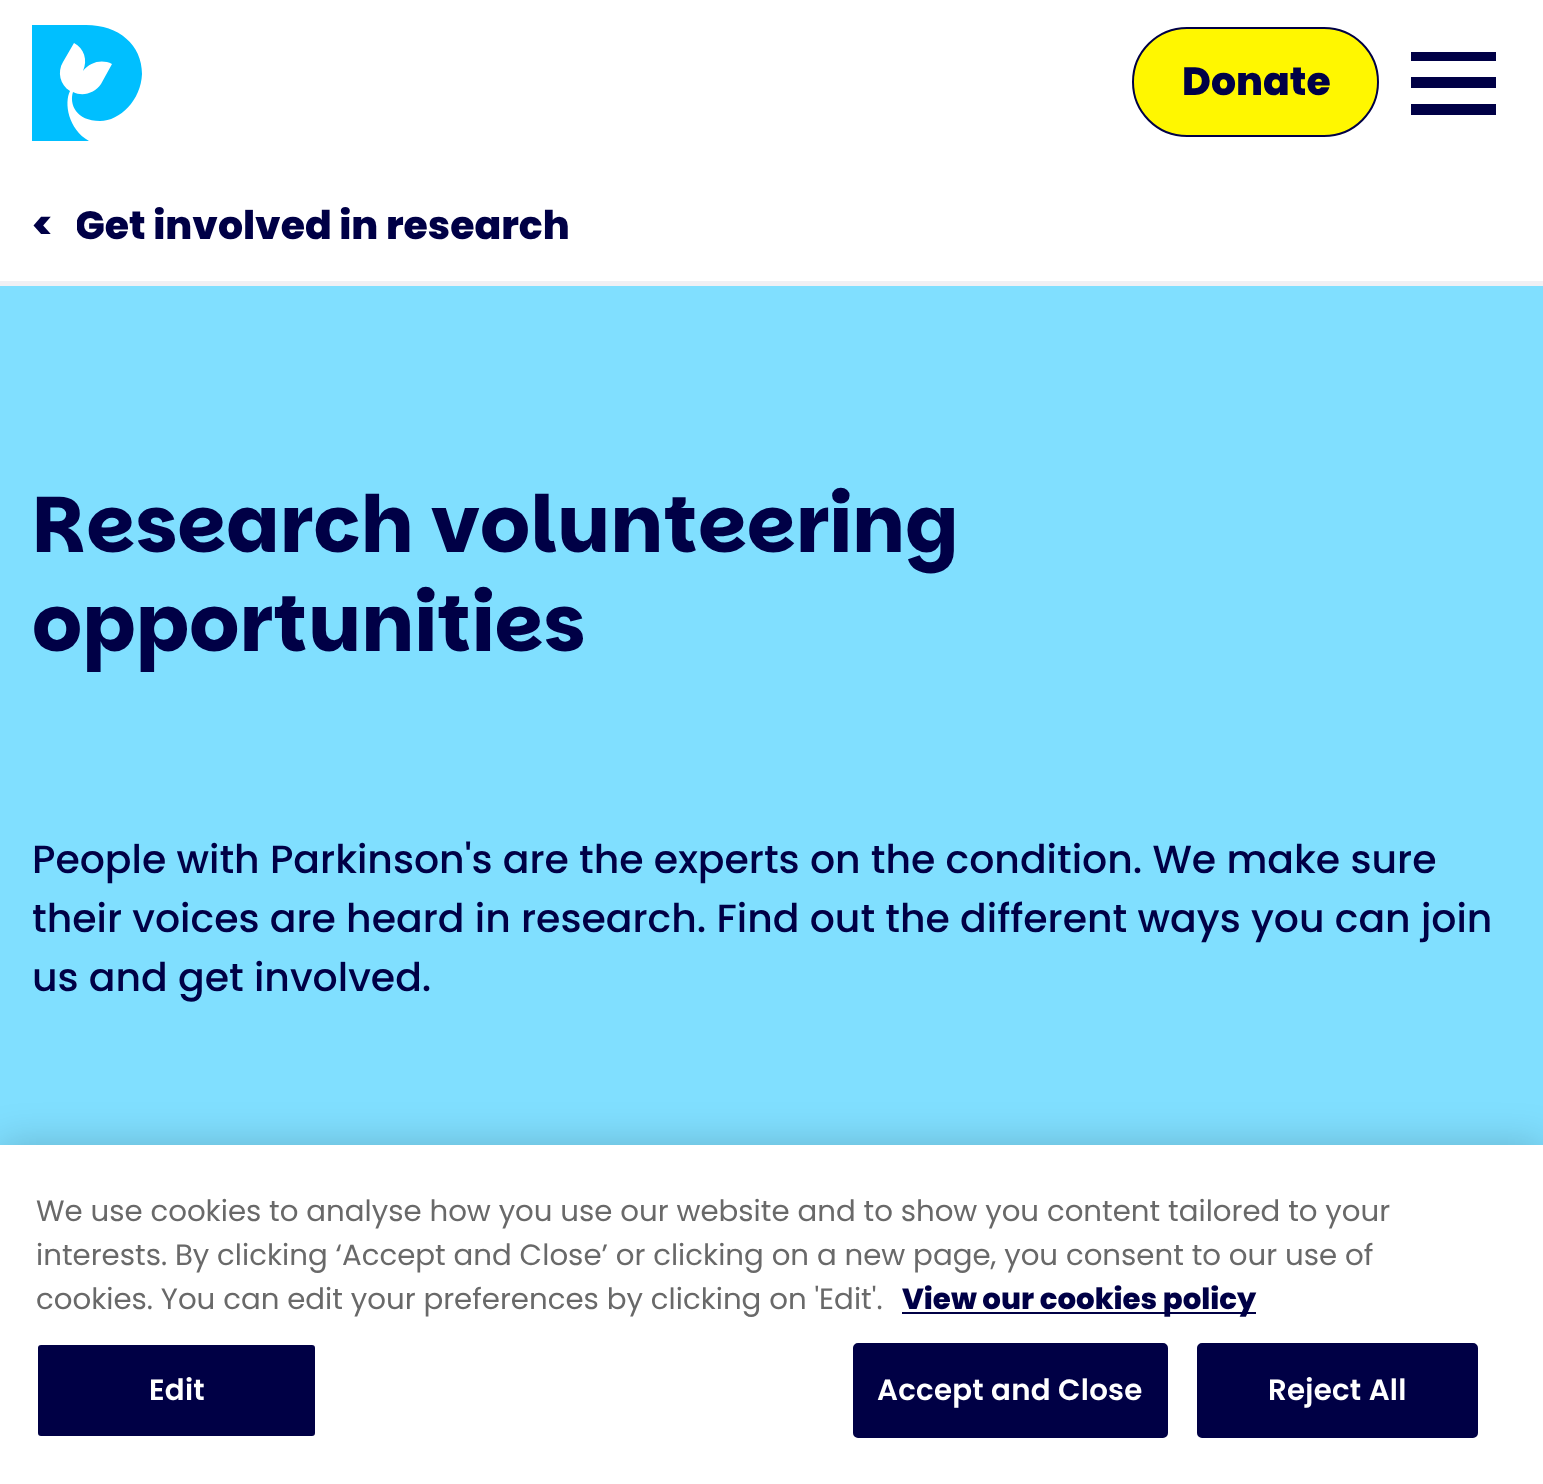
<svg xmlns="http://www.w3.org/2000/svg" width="1543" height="1484">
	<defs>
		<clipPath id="clip1"><rect x="77" y="196" width="492" height="58" /></clipPath>
	</defs>
	<rect width="100%" height="100%" fill="#FFFFFF" />
	<path d="M86 25H32V141H89C68 129 64 103 70 91C60 85 57 72 63 62L74 43C84 48 88 60 83 71C90 62 102 59 112 64L101 84C95 93 83 97 73 92C69 104 76 121 100 121C120 121 141 100 142 74C142 45 119 25 86 25Z" fill="#00BFFF" />
	<rect x="1133" y="28" width="245" height="108" rx="54" fill="#FFF700" stroke="#000046" stroke-width="2" />
	<text x="1182" y="95" font-family="Poppins" font-size="39.4" font-weight="800" fill="#000046">Donate</text>
	<rect x="1411" y="52" width="85" height="9" fill="#000046" />
	<rect x="1411" y="77" width="85" height="11" fill="#000046" />
	<rect x="1411" y="104" width="85" height="11" fill="#000046" />
	<text x="32" y="239" font-family="Poppins" font-size="39.4" font-weight="800" fill="#000046">&lt;</text>
	<g clip-path="url(#clip1)">
		<text x="75" y="239" font-family="Poppins" font-size="39.4" font-weight="800" fill="#000046">Get involved in research</text>
	</g>
	<rect x="0" y="281" width="1543" height="5" fill="#F0F0F4" />
	<rect x="0" y="286" width="1543" height="859" fill="#80DFFF" />
	<g font-family="Parkinsans" font-size="78.75" font-weight="700" fill="#000046">
		<text x="32" y="552">Research volunteering</text>
		<text x="32" y="651">opportunities</text>
	</g>
	<g font-family="Poppins" font-size="39.4" font-weight="500" fill="#000046">
		<text x="32" y="873">People with Parkinson's are the experts on the condition. We make sure</text>
		<text x="32" y="932">their voices are heard in research. Find out the different ways you can join</text>
		<text x="32" y="991">us and get involved.</text>
	</g>
	<rect x="0" y="1145" width="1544" height="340" fill="#000000" fill-opacity="0.2" filter="blur(20px)" />
	<rect x="0" y="1145" width="1543" height="339" fill="#FFFFFF" />
	<g font-family="Poppins" font-size="29.25" fill="#696969">
		<text x="36" y="1221">We use cookies to analyse how you use our website and to show you content tailored to your</text>
		<text x="36" y="1265">interests. By clicking ‘Accept and Close’ or clicking on a new page, you consent to our use of</text>
		<text x="36" y="1309">cookies. You can edit your preferences by clicking on 'Edit'.</text>
	</g>
	<rect x="902" y="1312" width="354" height="2" fill="#000045" />
	<text x="902" y="1309" font-family="Poppins" font-size="29.25" font-weight="800" fill="#000046">View our cookies policy</text>
	<rect x="37" y="1344" width="279" height="93" rx="4" fill="#000045" stroke="#FFFFFF" stroke-width="2" />
	<text x="149" y="1400" font-family="Poppins" font-size="29.25" font-weight="600" letter-spacing="0.25" fill="#FFFFFF">Edit</text>
	<rect x="854" y="1344" width="313" height="93" rx="4" fill="#000045" stroke="#000045" stroke-width="2" />
	<text x="877" y="1400" font-family="Poppins" font-size="29.25" font-weight="600" letter-spacing="0.25" fill="#FFFFFF">Accept and Close</text>
	<rect x="1198" y="1344" width="279" height="93" rx="4" fill="#000045" stroke="#000045" stroke-width="2" />
	<text x="1268" y="1400" font-family="Poppins" font-size="29.25" font-weight="600" letter-spacing="0.25" fill="#FFFFFF">Reject All</text>
</svg>
